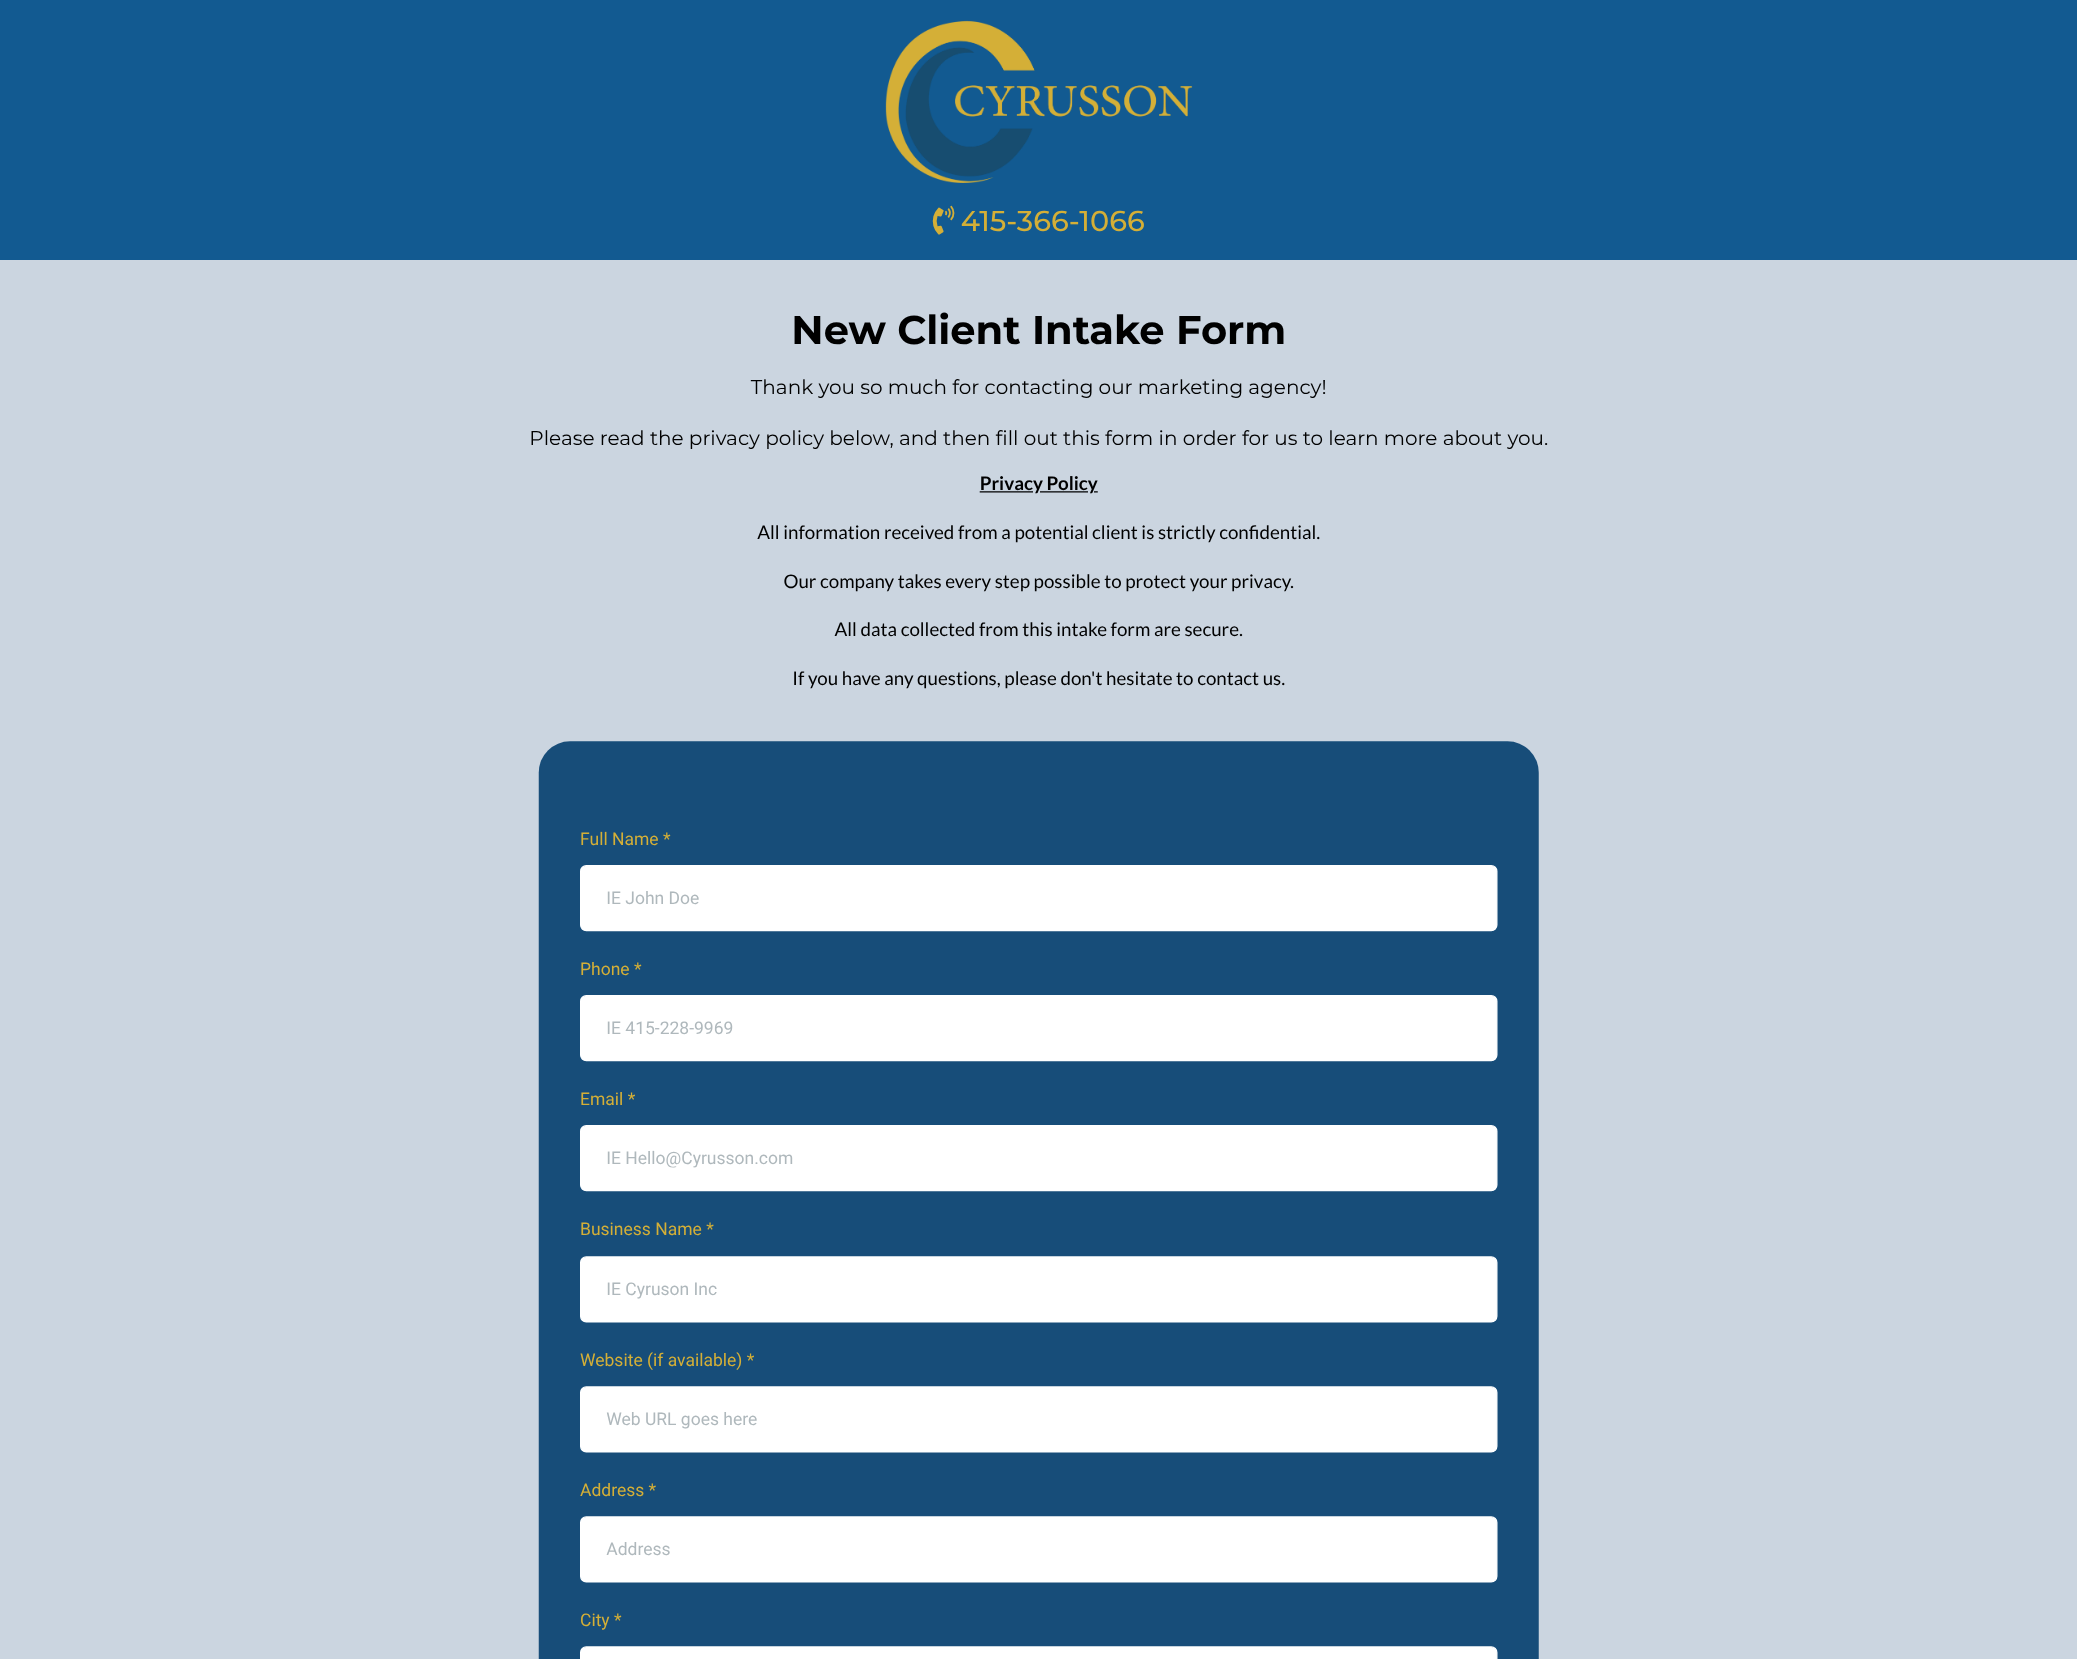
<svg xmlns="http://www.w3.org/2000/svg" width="2077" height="1659">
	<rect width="100%" height="100%" fill="#FFFFFF" />
	<image x="0" y="0" width="2077" height="1659" href="assets/img1.png" />
</svg>
